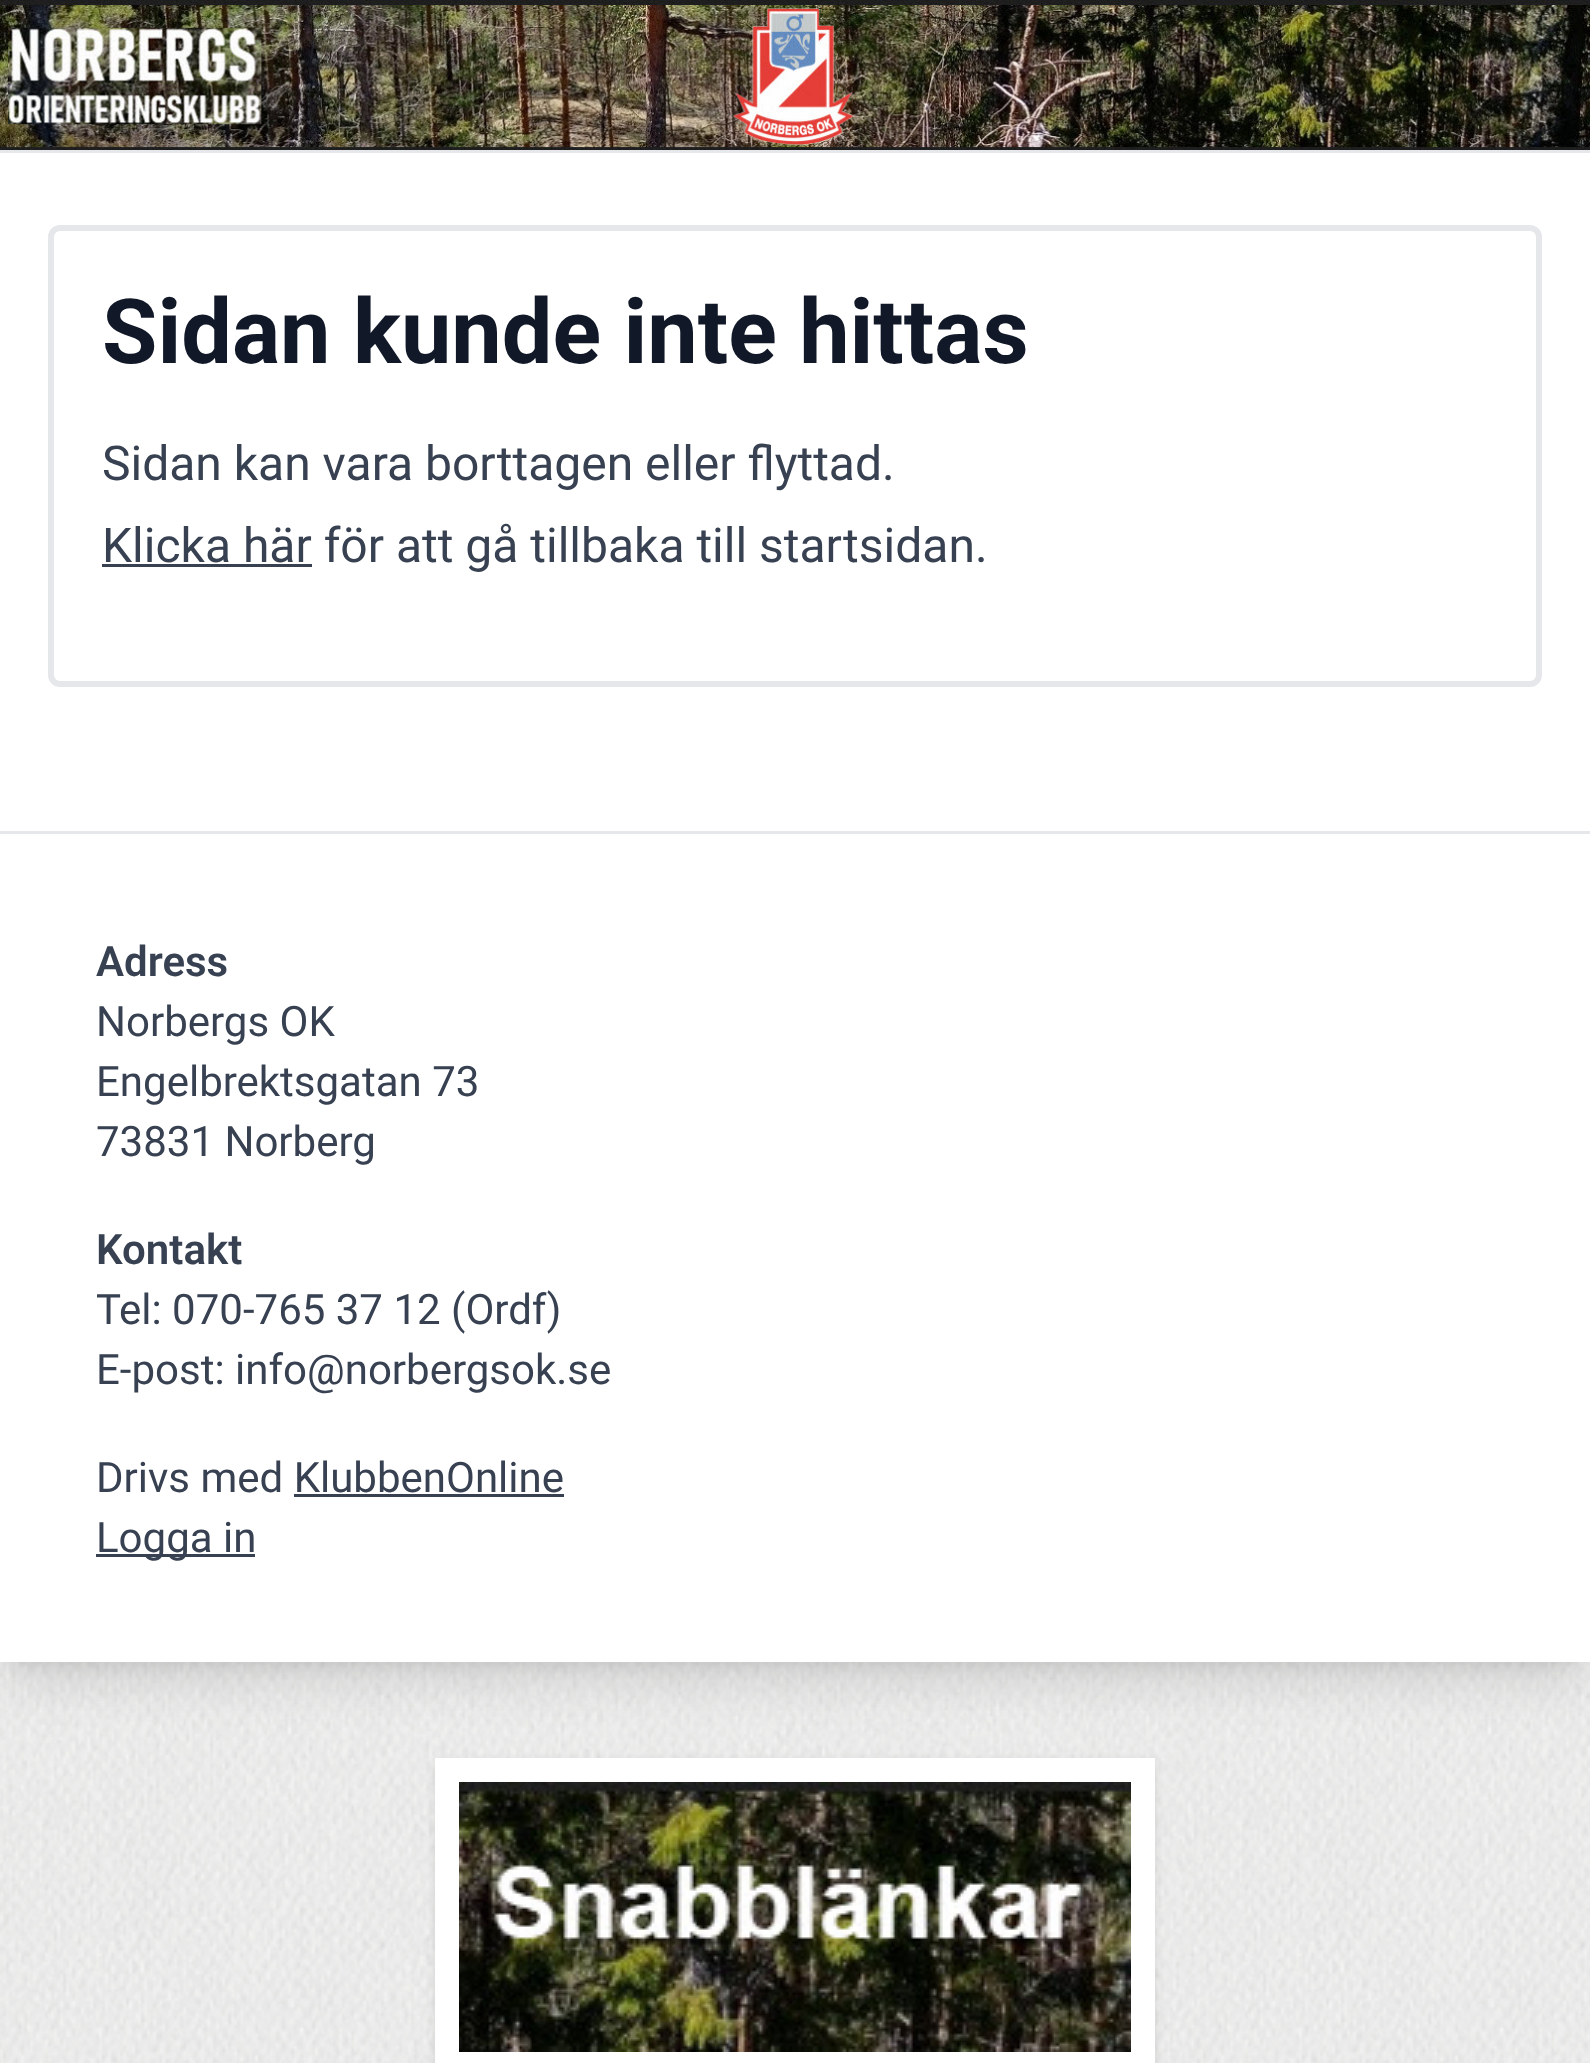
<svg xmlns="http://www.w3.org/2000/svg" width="1590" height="2063">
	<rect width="100%" height="100%" fill="#FFFFFF" />
	<image x="0" y="1662" width="1590" height="401" href="assets/img1.png" />
	<rect x="12" y="24" width="1566" height="1638" fill="#000000" fill-opacity="0.1" filter="blur(9px)" />
	<rect x="9" y="39" width="1572" height="1644" fill="#000000" fill-opacity="0.1" filter="blur(22.5px)" />
	<rect x="0" y="153" width="1590" height="1509" fill="#FFFFFF" />
	<image x="0" y="0" width="1590" height="150" href="assets/img2.png" />
	<rect x="0" y="150" width="1590" height="3" fill="#E5E7EB" />
	<rect x="51" y="228" width="1488" height="456" rx="9" fill="none" stroke="#E5E7EB" stroke-width="6" />
	<text x="102" y="363" font-family="Roboto" font-size="90" font-weight="700" fill="#111827">Sidan kunde inte hittas</text>
	<text x="102" y="480" font-family="Roboto" font-size="48" fill="#374151">Sidan kan vara borttagen eller flyttad.</text>
	<rect x="102" y="564" width="210" height="3" fill="#374151" />
	<text x="102" y="562" font-family="Roboto" font-size="48" fill="#374151">Klicka här för att gå tillbaka till startsidan.</text>
	<rect x="0" y="831" width="1590" height="3" fill="#E5E7EB" />
	<text x="96" y="976" font-family="Roboto" font-size="42" font-weight="600" fill="#374151">Adress</text>
	<g font-family="Roboto" font-size="42" fill="#374151">
		<text x="96" y="1036">Norbergs OK</text>
		<text x="96" y="1096">Engelbrektsgatan 73</text>
		<text x="96" y="1156">73831 Norberg</text>
	</g>
	<text x="96" y="1264" font-family="Roboto" font-size="42" font-weight="600" fill="#374151">Kontakt</text>
	<g font-family="Roboto" font-size="42" fill="#374151">
		<text x="96" y="1324">Tel: 070-765 37 12 (Ordf)</text>
		<text x="96" y="1384">E-post: info@norbergsok.se</text>
		<text x="96" y="1492">Drivs med KlubbenOnline</text>
	</g>
	<rect x="294" y="1494" width="270" height="3" fill="#374151" />
	<rect x="96" y="1554" width="159" height="3" fill="#374151" />
	<text x="96" y="1552" font-family="Roboto" font-size="42" fill="#374151">Logga in</text>
	<rect x="435" y="1761" width="720" height="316" fill="#000000" fill-opacity="0.1" filter="blur(4.5px)" />
	<rect x="435" y="1758" width="720" height="305" fill="#FFFFFF" />
	<image x="459" y="1782" width="672" height="270" href="assets/img3.png" />
</svg>
